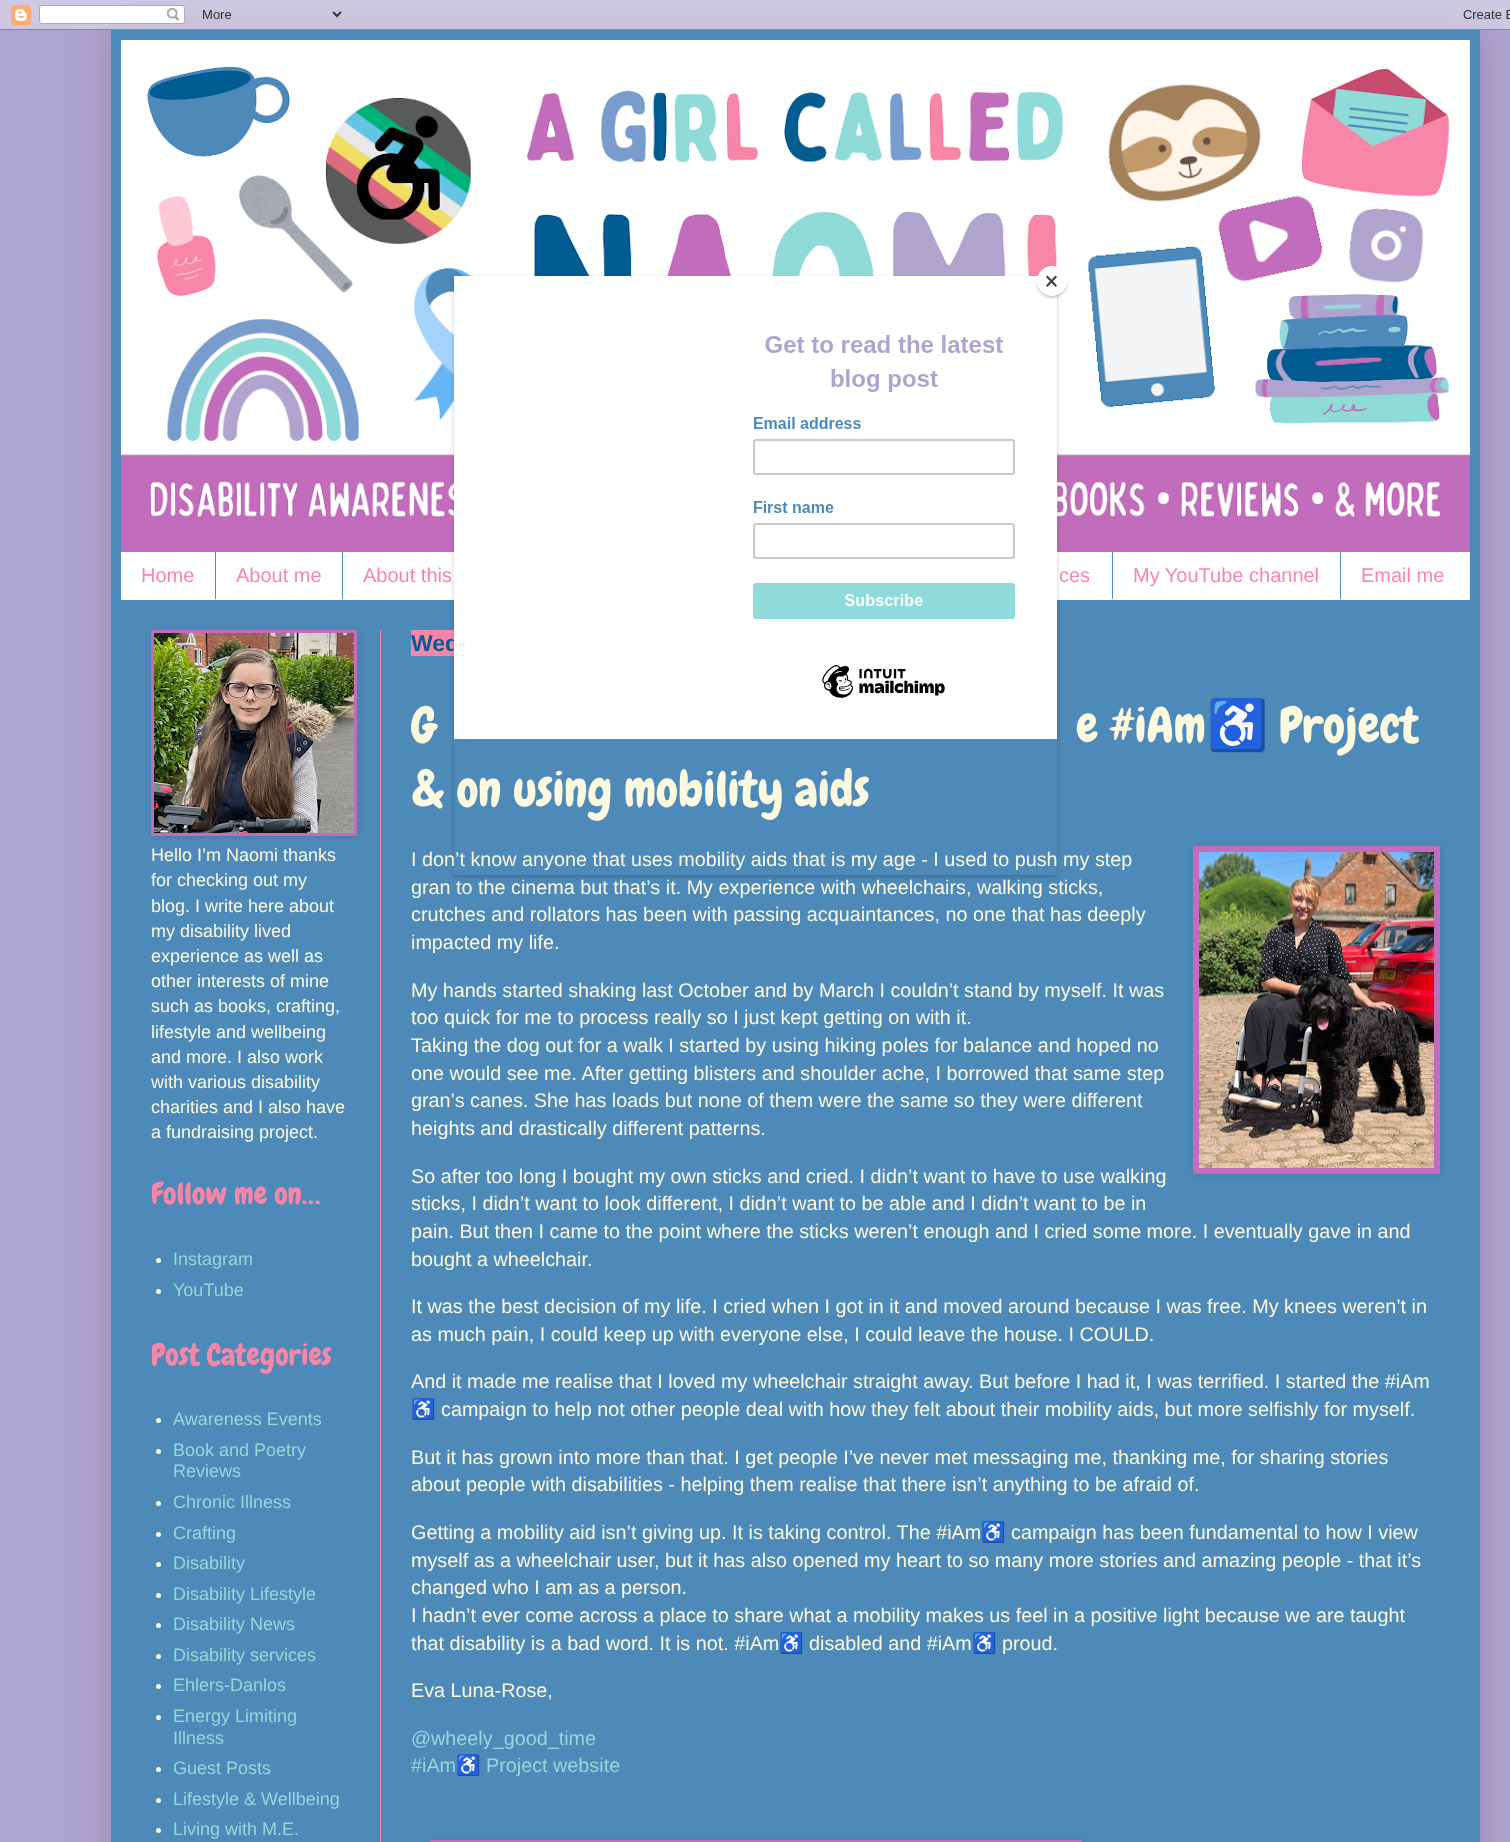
<svg xmlns="http://www.w3.org/2000/svg" width="1510" height="1842">
	<defs>
		<clipPath id="clip1"><path d="M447 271H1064V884H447ZM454 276H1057V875H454Z" clip-rule="evenodd" /></clipPath>
	</defs>
	<rect width="100%" height="100%" fill="#AEA4D0" />
	<rect x="111" y="30" width="1369" height="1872" fill="#000000" fill-opacity="0.15" filter="blur(20px)" />
	<image x="0" y="0" width="1510" height="30" href="assets/img1.png" />
	<rect x="111" y="30" width="1369" height="1812" fill="#4D89B9" />
	<image x="121" y="40" width="1349" height="512" href="assets/img3.png" />
	<rect x="121" y="552" width="1349" height="48" fill="#FFFFFF" />
	<rect x="411" y="630" width="43" height="26" fill="#F886A8" />
	<g clip-path="url(#clip1)">
		<rect x="454" y="278" width="603" height="599" fill="#000000" fill-opacity="0.2" filter="blur(2px)" />
	</g>
	<text x="411" y="651" font-family="Liberation Sans" font-size="23" font-weight="700" fill="#015C92">Wed</text>
	<image x="454" y="276" width="603" height="463" href="assets/img2.png" />
	<rect x="1037" y="268" width="30" height="30" rx="15" fill="#000000" fill-opacity="0.2" filter="blur(1px)" />
	<circle cx="1052" cy="281" r="15" fill="#FFFFFF" />
	<path d="M1055.5 275.5L1057 277L1047.5 287L1046 285.5Z" fill="#414141" />
	<path d="M1046 277L1047.5 275.5L1057 285.5L1055.5 287Z" fill="#414141" />
	<text x="141" y="582" font-family="Liberation Sans" font-size="20" fill="#F886A8">Home</text>
	<rect x="215" y="552" width="1" height="47" fill="#4D89B9" />
	<text x="236" y="582" font-family="Liberation Sans" font-size="20" fill="#F886A8">About me</text>
	<rect x="342" y="552" width="1" height="47" fill="#4D89B9" />
	<g font-family="Liberation Sans" font-size="20" fill="#F886A8">
		<text x="363" y="582">About this</text>
		<text x="1059" y="582">ces</text>
	</g>
	<rect x="1112" y="552" width="1" height="47" fill="#4D89B9" />
	<text x="1133" y="582" font-family="Liberation Sans" font-size="20" fill="#F886A8">My YouTube channel</text>
	<rect x="1340" y="552" width="1" height="47" fill="#4D89B9" />
	<text x="1361" y="582" font-family="Liberation Sans" font-size="20" fill="#F886A8">Email me</text>
	<rect x="380" y="630" width="1" height="1212" fill="#F886A8" />
	<rect x="152" y="631" width="206" height="206" fill="#000000" fill-opacity="0.1" filter="blur(2.5px)" />
	<rect x="151" y="630" width="206" height="206" fill="#C26DBC" />
	<image x="154" y="633" width="200" height="200" href="assets/img4.png" />
	<g font-family="Liberation Sans" font-size="18" fill="#FDF9DF">
		<text x="151" y="861">Hello I’m Naomi thanks</text>
		<text x="151" y="886">for checking out my</text>
		<text x="151" y="912">blog. I write here about</text>
		<text x="151" y="937">my disability lived</text>
		<text x="151" y="962">experience as well as</text>
		<text x="151" y="987">other interests of mine</text>
		<text x="151" y="1012">such as books, crafting,</text>
		<text x="151" y="1038">lifestyle and wellbeing</text>
		<text x="151" y="1063">and more. I also work</text>
		<text x="151" y="1088">with various disability</text>
		<text x="151" y="1113">charities and I also have</text>
		<text x="151" y="1138">a fundraising project.</text>
	</g>
	<text x="151" y="1204" font-family="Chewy" font-size="30" fill="#F886A8">Follow me on…</text>
	<circle cx="158.5" cy="1260.5" r="2.5" fill="#FDF9DF" />
	<text x="173" y="1265" font-family="Liberation Sans" font-size="18" fill="#8FDBD8">Instagram</text>
	<circle cx="158.5" cy="1291.5" r="2.5" fill="#FDF9DF" />
	<text x="173" y="1296" font-family="Liberation Sans" font-size="18" fill="#8FDBD8">YouTube</text>
	<text x="151" y="1365" font-family="Chewy" font-size="30" fill="#F886A8">Post Categories</text>
	<circle cx="158.5" cy="1420.5" r="2.5" fill="#FDF9DF" />
	<text x="173" y="1425" font-family="Liberation Sans" font-size="18" fill="#8FDBD8">Awareness Events</text>
	<circle cx="158.5" cy="1451.5" r="2.5" fill="#FDF9DF" />
	<g font-family="Liberation Sans" font-size="18" fill="#8FDBD8">
		<text x="173" y="1456">Book and Poetry</text>
		<text x="173" y="1477">Reviews</text>
	</g>
	<circle cx="158.5" cy="1503.5" r="2.5" fill="#FDF9DF" />
	<text x="173" y="1508" font-family="Liberation Sans" font-size="18" fill="#8FDBD8">Chronic Illness</text>
	<circle cx="158.5" cy="1534.5" r="2.5" fill="#FDF9DF" />
	<text x="173" y="1539" font-family="Liberation Sans" font-size="18" fill="#8FDBD8">Crafting</text>
	<circle cx="158.5" cy="1564.5" r="2.5" fill="#FDF9DF" />
	<text x="173" y="1569" font-family="Liberation Sans" font-size="18" fill="#8FDBD8">Disability</text>
	<circle cx="158.5" cy="1595.5" r="2.5" fill="#FDF9DF" />
	<text x="173" y="1600" font-family="Liberation Sans" font-size="18" fill="#8FDBD8">Disability Lifestyle</text>
	<circle cx="158.5" cy="1625.5" r="2.5" fill="#FDF9DF" />
	<text x="173" y="1630" font-family="Liberation Sans" font-size="18" fill="#8FDBD8">Disability News</text>
	<circle cx="158.5" cy="1656.5" r="2.5" fill="#FDF9DF" />
	<text x="173" y="1661" font-family="Liberation Sans" font-size="18" fill="#8FDBD8">Disability services</text>
	<circle cx="158.5" cy="1686.5" r="2.5" fill="#FDF9DF" />
	<text x="173" y="1691" font-family="Liberation Sans" font-size="18" fill="#8FDBD8">Ehlers-Danlos</text>
	<circle cx="158.5" cy="1717.5" r="2.5" fill="#FDF9DF" />
	<g font-family="Liberation Sans" font-size="18" fill="#8FDBD8">
		<text x="173" y="1722">Energy Limiting</text>
		<text x="173" y="1744">Illness</text>
	</g>
	<circle cx="158.5" cy="1769.5" r="2.5" fill="#FDF9DF" />
	<text x="173" y="1774" font-family="Liberation Sans" font-size="18" fill="#8FDBD8">Guest Posts</text>
	<circle cx="158.5" cy="1800.5" r="2.5" fill="#FDF9DF" />
	<text x="173" y="1805" font-family="Liberation Sans" font-size="18" fill="#8FDBD8">Lifestyle &amp; Wellbeing</text>
	<circle cx="158.5" cy="1830.5" r="2.5" fill="#FDF9DF" />
	<text x="173" y="1835" font-family="Liberation Sans" font-size="18" fill="#8FDBD8">Living with M.E.</text>
	<g font-family="Chewy" font-size="49" fill="#FDF9DF">
		<text x="411" y="742">G</text>
		<text x="1076" y="742">e #iAm</text>
	</g>
	<text x="1207" y="742" font-family="Noto Color Emoji" font-size="49" fill="#FDF9DF">♿️</text>
	<g font-family="Chewy" font-size="49" fill="#FDF9DF">
		<text x="1279" y="742">Project</text>
		<text x="411" y="806">&amp; on using mobility aids</text>
	</g>
	<g font-family="Liberation Sans" font-size="19.8" fill="#FDF9DF">
		<text x="411" y="866">I don’t know anyone that uses mobility aids that is my age - I used to push my step</text>
		<text x="411" y="894">gran to the cinema but that’s it. My experience with wheelchairs, walking sticks,</text>
		<text x="411" y="921">crutches and rollators has been with passing acquaintances, no one that has deeply</text>
		<text x="411" y="949">impacted my life.</text>
	</g>
	<rect x="1194" y="847" width="247" height="328" fill="#000000" fill-opacity="0.1" filter="blur(2.5px)" />
	<rect x="1193" y="846" width="247" height="328" fill="#C26DBC" />
	<image x="1199" y="852" width="235" height="316" href="assets/img5.png" />
	<g font-family="Liberation Sans" font-size="19.8" fill="#FDF9DF">
		<text x="411" y="997">My hands started shaking last October and by March I couldn’t stand by myself. It was</text>
		<text x="411" y="1024">too quick for me to process really so I just kept getting on with it.</text>
		<text x="411" y="1052">Taking the dog out for a walk I started by using hiking poles for balance and hoped no</text>
		<text x="411" y="1080">one would see me. After getting blisters and shoulder ache, I borrowed that same step</text>
		<text x="411" y="1107">gran’s canes. She has loads but none of them were the same so they were different</text>
		<text x="411" y="1135">heights and drastically different patterns.</text>
		<text x="411" y="1183">So after too long I bought my own sticks and cried. I didn’t want to have to use walking</text>
		<text x="411" y="1210">sticks, I didn’t want to look different, I didn’t want to be able and I didn’t want to be in</text>
		<text x="411" y="1238">pain. But then I came to the point where the sticks weren’t enough and I cried some more. I eventually gave in and</text>
		<text x="411" y="1266">bought a wheelchair.</text>
		<text x="411" y="1313">It was the best decision of my life. I cried when I got in it and moved around because I was free. My knees weren’t in</text>
		<text x="411" y="1341">as much pain, I could keep up with everyone else, I could leave the house. I COULD.</text>
		<text x="411" y="1388">And it made me realise that I loved my wheelchair straight away. But before I had it, I was terrified. I started the #iAm</text>
	</g>
	<text x="411" y="1416" font-family="Noto Color Emoji" font-size="19.8" fill="#FDF9DF">♿️</text>
	<g font-family="Liberation Sans" font-size="19.8" fill="#FDF9DF">
		<text x="441" y="1416">campaign to help not other people deal with how they felt about their mobility aids, but more selfishly for myself.</text>
		<text x="411" y="1464">But it has grown into more than that. I get people I’ve never met messaging me, thanking me, for sharing stories</text>
		<text x="411" y="1491">about people with disabilities - helping them realise that there isn’t anything to be afraid of.</text>
		<text x="411" y="1539">Getting a mobility aid isn’t giving up. It is taking control. The #iAm</text>
	</g>
	<text x="981" y="1539" font-family="Noto Color Emoji" font-size="19.8" fill="#FDF9DF">♿️</text>
	<g font-family="Liberation Sans" font-size="19.8" fill="#FDF9DF">
		<text x="1011" y="1539">campaign has been fundamental to how I view</text>
		<text x="411" y="1567">myself as a wheelchair user, but it has also opened my heart to so many more stories and amazing people - that it’s</text>
		<text x="411" y="1594">changed who I am as a person.</text>
		<text x="411" y="1622">I hadn’t ever come across a place to share what a mobility makes us feel in a positive light because we are taught</text>
		<text x="411" y="1650">that disability is a bad word. It is not. #iAm</text>
	</g>
	<text x="779" y="1650" font-family="Noto Color Emoji" font-size="19.8" fill="#FDF9DF">♿️</text>
	<text x="809" y="1650" font-family="Liberation Sans" font-size="19.8" fill="#FDF9DF">disabled and #iAm</text>
	<text x="972" y="1650" font-family="Noto Color Emoji" font-size="19.8" fill="#FDF9DF">♿️</text>
	<g font-family="Liberation Sans" font-size="19.8" fill="#FDF9DF">
		<text x="1002" y="1650">proud.</text>
		<text x="411" y="1697">Eva Luna-Rose,</text>
	</g>
	<g font-family="Liberation Sans" font-size="19.8" fill="#8FDBD8">
		<text x="411" y="1745">@wheely_good_time</text>
		<text x="411" y="1772">#iAm</text>
	</g>
	<text x="456" y="1772" font-family="Noto Color Emoji" font-size="19.8" fill="#8FDBD8">♿️</text>
	<text x="486" y="1772" font-family="Liberation Sans" font-size="19.8" fill="#8FDBD8">Project website</text>
	<rect x="431" y="1841" width="652" height="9" fill="#000000" fill-opacity="0.1" filter="blur(2.5px)" />
	<rect x="430" y="1840" width="652" height="2" fill="#C26DBC" />
</svg>
